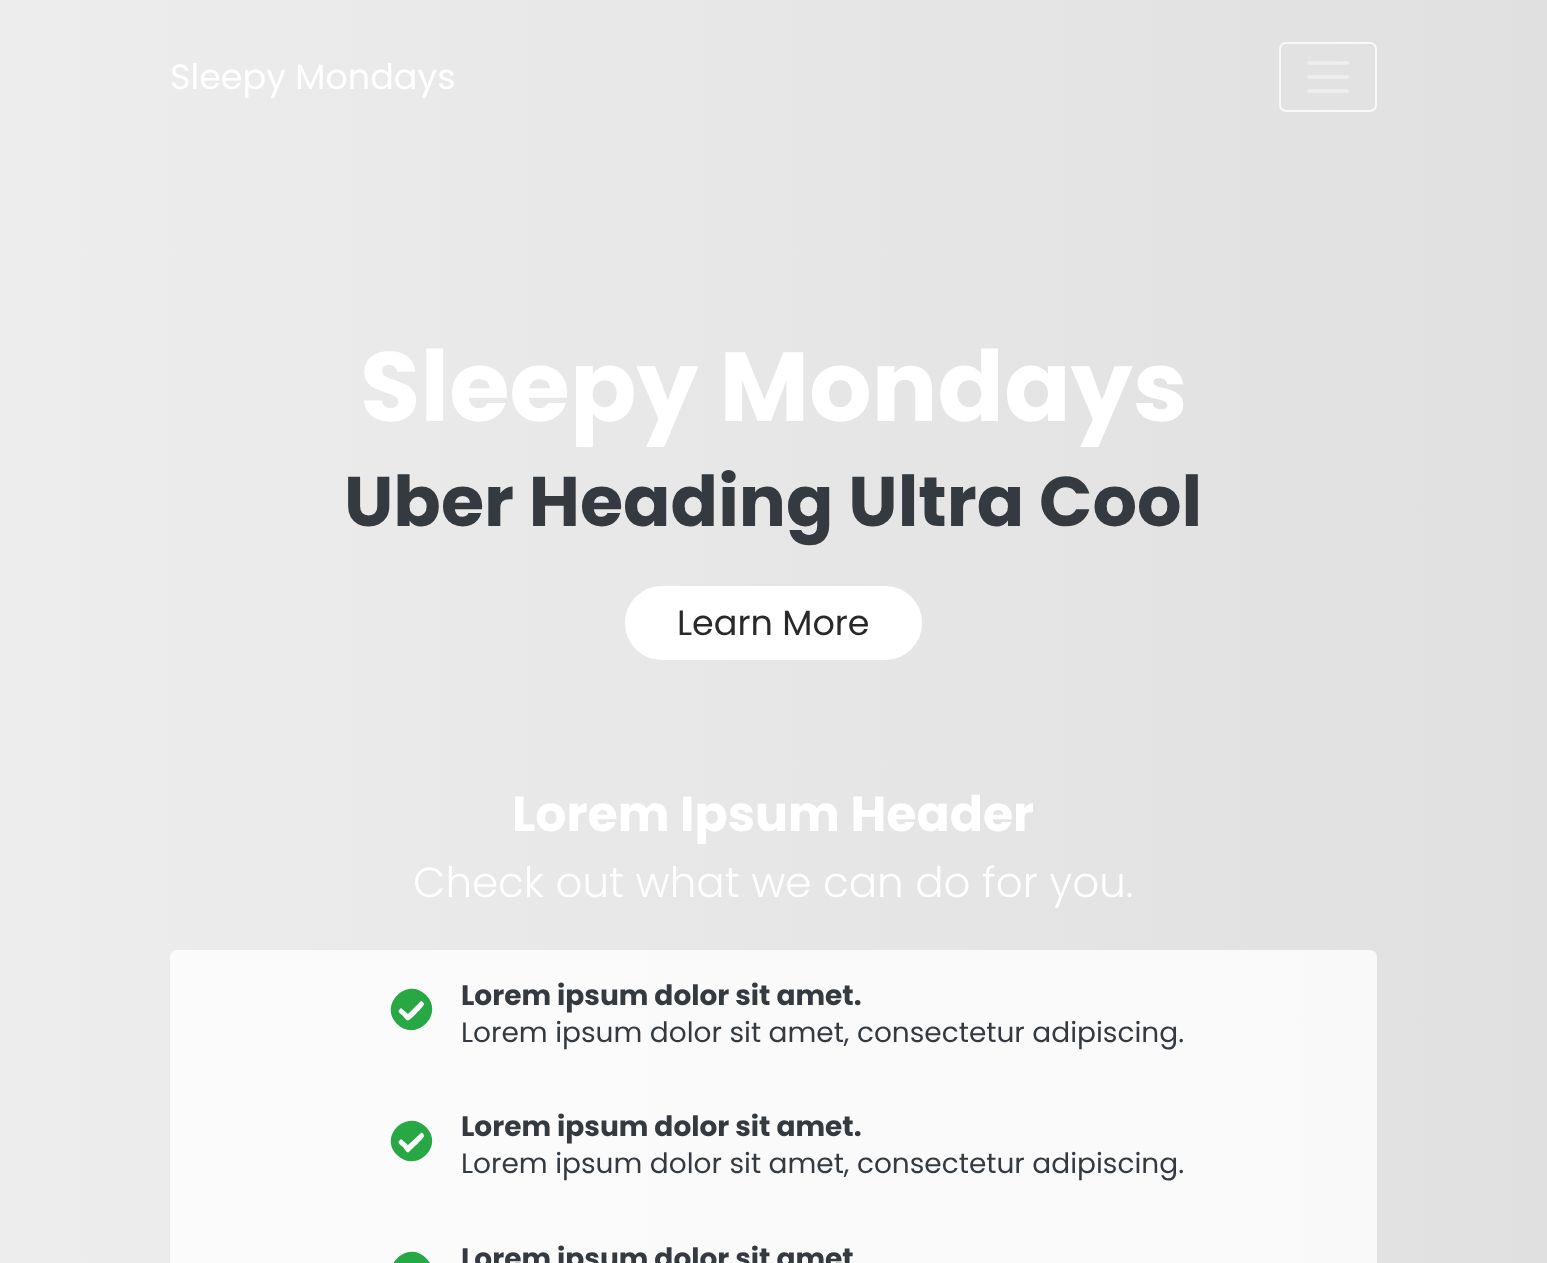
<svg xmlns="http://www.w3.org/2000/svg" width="1547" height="1263">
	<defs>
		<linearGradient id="g1" gradientUnits="userSpaceOnUse" x1="0" y1="799" x2="1547" y2="799"><stop offset="0" stop-color="#EDEDED" /><stop offset="1" stop-color="#E0E0E0" /></linearGradient>
	</defs>
	<rect width="100%" height="100%" fill="#FFFFFF" />
	<rect x="0" y="0" width="1547" height="1263" fill="url(#g1)" />
	<text x="170" y="89" font-family="Poppins" font-size="35" fill="#FFFFFF">Sleepy Mondays</text>
	<rect x="1280" y="43" width="96" height="68" rx="6" fill="none" stroke="#F9F9F9" stroke-width="2" />
	<path d="M1309 63H1347.5M1309 77H1347.5M1309 91H1347.5" fill="none" stroke="#EEEEEE" stroke-width="3.5" stroke-linecap="round" />
	<text x="360" y="421" font-family="Poppins" font-size="98" font-weight="700" fill="#FFFFFF">Sleepy Mondays</text>
	<text x="344" y="526" font-family="Poppins" font-size="70" font-weight="700" fill="#343A40">Uber Heading Ultra Cool</text>
	<rect x="627" y="588" width="293" height="70" rx="35" fill="#FFFFFF" stroke="#FFFFFF" stroke-width="4" />
	<text x="677" y="635" font-family="Poppins" font-size="35" fill="#292929">Learn More</text>
	<text x="512" y="831" font-family="Poppins" font-size="49" font-weight="700" fill="#FFFFFF">Lorem Ipsum Header</text>
	<text x="413" y="897" font-family="Poppins" font-size="42" font-weight="300" fill="#FFFFFF">Check out what we can do for you.</text>
	<rect x="170" y="950" width="1207" height="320" rx="7" fill="#FFFFFF" fill-opacity="0.8" />
	<path d="M426 995C445 1014 416 1043 397 1024C378 1005 407 976 426 995ZM409 1020C411 1019 425 1005 424 1004C424 1003 422 1001 421 1001L408 1014L401 1008L399 1010C397 1012 402 1015 403 1016C404 1017 407 1022 409 1020Z" fill="#28A745" />
	<text x="461" y="1005" font-family="Poppins" font-size="28" font-weight="700" fill="#343A40">Lorem ipsum dolor sit amet.</text>
	<text x="461" y="1042" font-family="Poppins" font-size="28" fill="#343A40">Lorem ipsum dolor sit amet, consectetur adipiscing.</text>
	<path d="M426 1127C445 1146 416 1174 397 1155C378 1136 407 1108 426 1127ZM409 1152C411 1150 425 1137 424 1136C424 1134 422 1132 421 1133L408 1145L401 1139L399 1141C397 1143 402 1146 403 1147C404 1148 407 1154 409 1152Z" fill="#28A745" />
	<text x="461" y="1136" font-family="Poppins" font-size="28" font-weight="700" fill="#343A40">Lorem ipsum dolor sit amet.</text>
	<text x="461" y="1173" font-family="Poppins" font-size="28" fill="#343A40">Lorem ipsum dolor sit amet, consectetur adipiscing.</text>
	<path d="M426 1258C445 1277 416 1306 397 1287C378 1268 407 1239 426 1258ZM409 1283C411 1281 425 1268 424 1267C424 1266 422 1263 421 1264L408 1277L401 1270L399 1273C397 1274 402 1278 403 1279C404 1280 407 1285 409 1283Z" fill="#28A745" />
	<text x="461" y="1268" font-family="Poppins" font-size="28" font-weight="700" fill="#343A40">Lorem ipsum dolor sit amet</text>
</svg>
